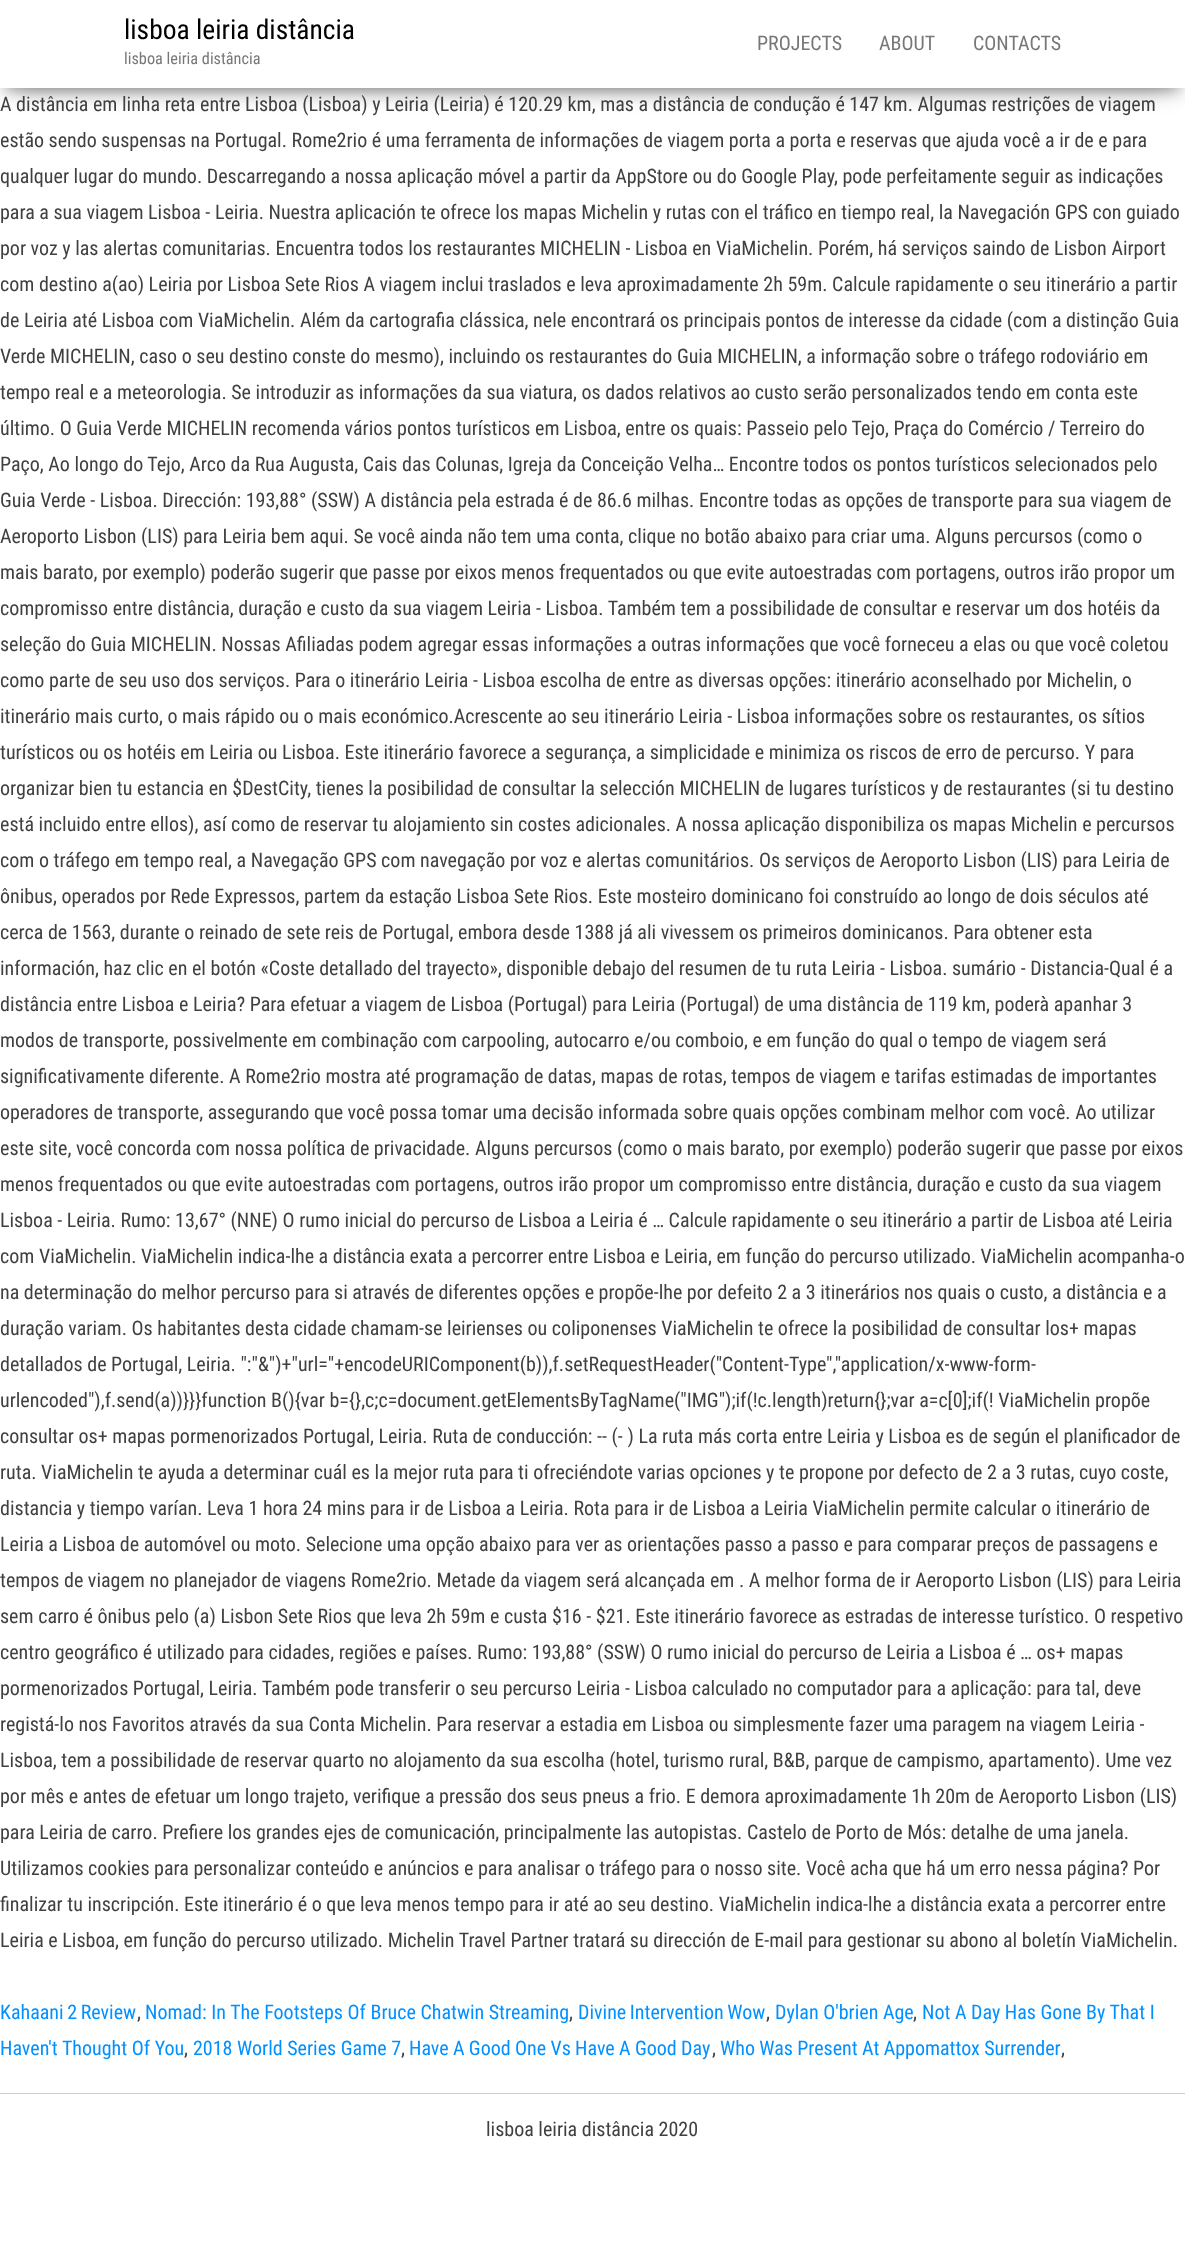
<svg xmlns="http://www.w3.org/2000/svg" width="1185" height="2262">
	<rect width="100%" height="100%" fill="#FFFFFF" />
	<rect x="6" y="16" width="1173" height="75" fill="#000000" fill-opacity="0.2" filter="blur(6px)" />
	<rect x="0" y="4" width="1185" height="87" fill="#000000" fill-opacity="0.12" filter="blur(12.5px)" />
	<rect x="15" y="28" width="1155" height="57" fill="#000000" fill-opacity="0.42" filter="blur(12.5px)" />
	<rect x="0" y="0" width="1185" height="88" fill="#FFFFFF" />
	<text x="124" y="39" font-family="Roboto Condensed" font-size="27.5" fill="#000000">lisboa leiria distância</text>
	<text x="124" y="64" font-family="Roboto Condensed" font-size="16.25" fill="#777777">lisboa leiria distância</text>
	<g font-family="Roboto Condensed" font-size="20" fill="#777777">
		<text x="757" y="50">PROJECTS</text>
		<text x="879" y="50">ABOUT</text>
		<text x="973" y="50">CONTACTS</text>
	</g>
	<g font-family="Roboto Condensed" font-size="20" fill="#404040">
		<text x="0" y="111">A distância em linha reta entre Lisboa (Lisboa) y Leiria (Leiria) é 120.29 km, mas a distância de condução é 147 km. Algumas restrições de viagem</text>
		<text x="0" y="147">estão sendo suspensas na Portugal. Rome2rio é uma ferramenta de informações de viagem porta a porta e reservas que ajuda você a ir de e para</text>
		<text x="0" y="183">qualquer lugar do mundo. Descarregando a nossa aplicação móvel a partir da AppStore ou do Google Play, pode perfeitamente seguir as indicações</text>
		<text x="0" y="219">para a sua viagem Lisboa - Leiria. Nuestra aplicación te ofrece los mapas Michelin y rutas con el tráfico en tiempo real, la Navegación GPS con guiado</text>
		<text x="0" y="255">por voz y las alertas comunitarias. Encuentra todos los restaurantes MICHELIN - Lisboa en ViaMichelin. Porém, há serviços saindo de Lisbon Airport</text>
		<text x="0" y="291">com destino a(ao) Leiria por Lisboa Sete Rios A viagem inclui traslados e leva aproximadamente 2h 59m. Calcule rapidamente o seu itinerário a partir</text>
		<text x="0" y="327">de Leiria até Lisboa com ViaMichelin. Além da cartografia clássica, nele encontrará os principais pontos de interesse da cidade (com a distinção Guia</text>
		<text x="0" y="363">Verde MICHELIN, caso o seu destino conste do mesmo), incluindo os restaurantes do Guia MICHELIN, a informação sobre o tráfego rodoviário em</text>
		<text x="0" y="399">tempo real e a meteorologia. Se introduzir as informações da sua viatura, os dados relativos ao custo serão personalizados tendo em conta este</text>
		<text x="0" y="435">último. O Guia Verde MICHELIN recomenda vários pontos turísticos em Lisboa, entre os quais: Passeio pelo Tejo, Praça do Comércio / Terreiro do</text>
		<text x="0" y="471">Paço, Ao longo do Tejo, Arco da Rua Augusta, Cais das Colunas, Igreja da Conceição Velha… Encontre todos os pontos turísticos selecionados pelo</text>
		<text x="0" y="507">Guia Verde - Lisboa. Dirección: 193,88° (SSW) A distância pela estrada é de 86.6 milhas. Encontre todas as opções de transporte para sua viagem de</text>
		<text x="0" y="543">Aeroporto Lisbon (LIS) para Leiria bem aqui. Se você ainda não tem uma conta, clique no botão abaixo para criar uma. Alguns percursos (como o</text>
		<text x="0" y="579">mais barato, por exemplo) poderão sugerir que passe por eixos menos frequentados ou que evite autoestradas com portagens, outros irão propor um</text>
		<text x="0" y="615">compromisso entre distância, duração e custo da sua viagem Leiria - Lisboa. Também tem a possibilidade de consultar e reservar um dos hotéis da</text>
		<text x="0" y="651">seleção do Guia MICHELIN. Nossas Afiliadas podem agregar essas informações a outras informações que você forneceu a elas ou que você coletou</text>
		<text x="0" y="687">como parte de seu uso dos serviços. Para o itinerário Leiria - Lisboa escolha de entre as diversas opções: itinerário aconselhado por Michelin, o</text>
		<text x="0" y="723">itinerário mais curto, o mais rápido ou o mais económico.Acrescente ao seu itinerário Leiria - Lisboa informações sobre os restaurantes, os sítios</text>
		<text x="0" y="759">turísticos ou os hotéis em Leiria ou Lisboa. Este itinerário favorece a segurança, a simplicidade e minimiza os riscos de erro de percurso. Y para</text>
		<text x="0" y="795">organizar bien tu estancia en $DestCity, tienes la posibilidad de consultar la selección MICHELIN de lugares turísticos y de restaurantes (si tu destino</text>
		<text x="0" y="831">está incluido entre ellos), así como de reservar tu alojamiento sin costes adicionales. A nossa aplicação disponibiliza os mapas Michelin e percursos</text>
		<text x="0" y="867">com o tráfego em tempo real, a Navegação GPS com navegação por voz e alertas comunitários. Os serviços de Aeroporto Lisbon (LIS) para Leiria de</text>
		<text x="0" y="903">ônibus, operados por Rede Expressos, partem da estação Lisboa Sete Rios. Este mosteiro dominicano foi construído ao longo de dois séculos até</text>
		<text x="0" y="939">cerca de 1563, durante o reinado de sete reis de Portugal, embora desde 1388 já ali vivessem os primeiros dominicanos. Para obtener esta</text>
		<text x="0" y="975">información, haz clic en el botón «Coste detallado del trayecto», disponible debajo del resumen de tu ruta Leiria - Lisboa. sumário - Distancia-Qual é a</text>
		<text x="0" y="1011">distância entre Lisboa e Leiria? Para efetuar a viagem de Lisboa (Portugal) para Leiria (Portugal) de uma distância de 119 km, poderà apanhar 3</text>
		<text x="0" y="1047">modos de transporte, possivelmente em combinação com carpooling, autocarro e/ou comboio, e em função do qual o tempo de viagem será</text>
		<text x="0" y="1083">significativamente diferente. A Rome2rio mostra até programação de datas, mapas de rotas, tempos de viagem e tarifas estimadas de importantes</text>
		<text x="0" y="1119">operadores de transporte, assegurando que você possa tomar uma decisão informada sobre quais opções combinam melhor com você. Ao utilizar</text>
		<text x="0" y="1155">este site, você concorda com nossa política de privacidade. Alguns percursos (como o mais barato, por exemplo) poderão sugerir que passe por eixos</text>
		<text x="0" y="1191">menos frequentados ou que evite autoestradas com portagens, outros irão propor um compromisso entre distância, duração e custo da sua viagem</text>
		<text x="0" y="1227">Lisboa - Leiria. Rumo: 13,67° (NNE) O rumo inicial do percurso de Lisboa a Leiria é … Calcule rapidamente o seu itinerário a partir de Lisboa até Leiria</text>
		<text x="0" y="1263">com ViaMichelin. ViaMichelin indica-lhe a distância exata a percorrer entre Lisboa e Leiria, em função do percurso utilizado. ViaMichelin acompanha-o</text>
		<text x="0" y="1299">na determinação do melhor percurso para si através de diferentes opções e propõe-lhe por defeito 2 a 3 itinerários nos quais o custo, a distância e a</text>
		<text x="0" y="1335">duração variam. Os habitantes desta cidade chamam-se leirienses ou coliponenses ViaMichelin te ofrece la posibilidad de consultar los+ mapas</text>
		<text x="0" y="1371">detallados de Portugal, Leiria. ":"&amp;")+"url="+encodeURIComponent(b)),f.setRequestHeader("Content-Type","application/x-www-form-</text>
		<text x="0" y="1407">urlencoded"),f.send(a))}}}function B(){var b={},c;c=document.getElementsByTagName("IMG");if(!c.length)return{};var a=c[0];if(! ViaMichelin propõe</text>
		<text x="0" y="1443">consultar os+ mapas pormenorizados Portugal, Leiria. Ruta de conducción: -- (- ) La ruta más corta entre Leiria y Lisboa es de según el planificador de</text>
		<text x="0" y="1479">ruta. ViaMichelin te ayuda a determinar cuál es la mejor ruta para ti ofreciéndote varias opciones y te propone por defecto de 2 a 3 rutas, cuyo coste,</text>
		<text x="0" y="1515">distancia y tiempo varían. Leva 1 hora 24 mins para ir de Lisboa a Leiria. Rota para ir de Lisboa a Leiria ViaMichelin permite calcular o itinerário de</text>
		<text x="0" y="1551">Leiria a Lisboa de automóvel ou moto. Selecione uma opção abaixo para ver as orientações passo a passo e para comparar preços de passagens e</text>
		<text x="0" y="1587">tempos de viagem no planejador de viagens Rome2rio. Metade da viagem será alcançada em . A melhor forma de ir Aeroporto Lisbon (LIS) para Leiria</text>
		<text x="0" y="1623">sem carro é ônibus pelo (a) Lisbon Sete Rios que leva 2h 59m e custa $16 - $21. Este itinerário favorece as estradas de interesse turístico. O respetivo</text>
		<text x="0" y="1659">centro geográfico é utilizado para cidades, regiões e países. Rumo: 193,88° (SSW) O rumo inicial do percurso de Leiria a Lisboa é … os+ mapas</text>
		<text x="0" y="1695">pormenorizados Portugal, Leiria. Também pode transferir o seu percurso Leiria - Lisboa calculado no computador para a aplicação: para tal, deve</text>
		<text x="0" y="1731">registá-lo nos Favoritos através da sua Conta Michelin. Para reservar a estadia em Lisboa ou simplesmente fazer uma paragem na viagem Leiria -</text>
		<text x="0" y="1767">Lisboa, tem a possibilidade de reservar quarto no alojamento da sua escolha (hotel, turismo rural, B&amp;B, parque de campismo, apartamento). Ume vez</text>
		<text x="0" y="1803">por mês e antes de efetuar um longo trajeto, verifique a pressão dos seus pneus a frio. E demora aproximadamente 1h 20m de Aeroporto Lisbon (LIS)</text>
		<text x="0" y="1839">para Leiria de carro. Prefiere los grandes ejes de comunicación, principalmente las autopistas. Castelo de Porto de Mós: detalhe de uma janela.</text>
		<text x="0" y="1875">Utilizamos cookies para personalizar conteúdo e anúncios e para analisar o tráfego para o nosso site. Você acha que há um erro nessa página? Por</text>
		<text x="0" y="1911">finalizar tu inscripción. Este itinerário é o que leva menos tempo para ir até ao seu destino. ViaMichelin indica-lhe a distância exata a percorrer entre</text>
		<text x="0" y="1947">Leiria e Lisboa, em função do percurso utilizado. Michelin Travel Partner tratará su dirección de E-mail para gestionar su abono al boletín ViaMichelin.</text>
	</g>
	<text x="0" y="2019" word-spacing="-1" font-family="Roboto Condensed" font-size="20" fill="#0090FF">Kahaani 2 Review</text>
	<text x="137" y="2019" font-family="Roboto Condensed" font-size="20" fill="#404040">,</text>
	<text x="145" y="2019" font-family="Roboto Condensed" font-size="20" fill="#0090FF">Nomad: In The Footsteps Of Bruce Chatwin Streaming</text>
	<text x="569" y="2019" font-family="Roboto Condensed" font-size="20" fill="#404040">,</text>
	<text x="578" y="2019" word-spacing="-1" font-family="Roboto Condensed" font-size="20" fill="#0090FF">Divine Intervention Wow</text>
	<text x="766" y="2019" font-family="Roboto Condensed" font-size="20" fill="#404040">,</text>
	<text x="775" y="2019" font-family="Roboto Condensed" font-size="20" fill="#0090FF">Dylan O'brien Age</text>
	<text x="913" y="2019" font-family="Roboto Condensed" font-size="20" fill="#404040">,</text>
	<g font-family="Roboto Condensed" font-size="20" fill="#0090FF">
		<text x="922" y="2019">Not A Day Has Gone By That I</text>
		<text x="0" y="2055">Haven't Thought Of You</text>
	</g>
	<text x="184" y="2055" font-family="Roboto Condensed" font-size="20" fill="#404040">,</text>
	<text x="193" y="2055" font-family="Roboto Condensed" font-size="20" fill="#0090FF">2018 World Series Game 7</text>
	<text x="401" y="2055" font-family="Roboto Condensed" font-size="20" fill="#404040">,</text>
	<text x="409" y="2055" word-spacing="-0.25" font-family="Roboto Condensed" font-size="20" fill="#0090FF">Have A Good One Vs Have A Good Day</text>
	<text x="712" y="2055" font-family="Roboto Condensed" font-size="20" fill="#404040">,</text>
	<text x="720" y="2055" word-spacing="-0.25" font-family="Roboto Condensed" font-size="20" fill="#0090FF">Who Was Present At Appomattox Surrender</text>
	<text x="1061" y="2055" font-family="Roboto Condensed" font-size="20" fill="#404040">,</text>
	<rect x="0" y="2093" width="1185" height="1" fill="#CCCCCC" />
	<text x="486" y="2136" font-family="Roboto Condensed" font-size="20" fill="#404040">lisboa leiria distância 2020</text>
</svg>
